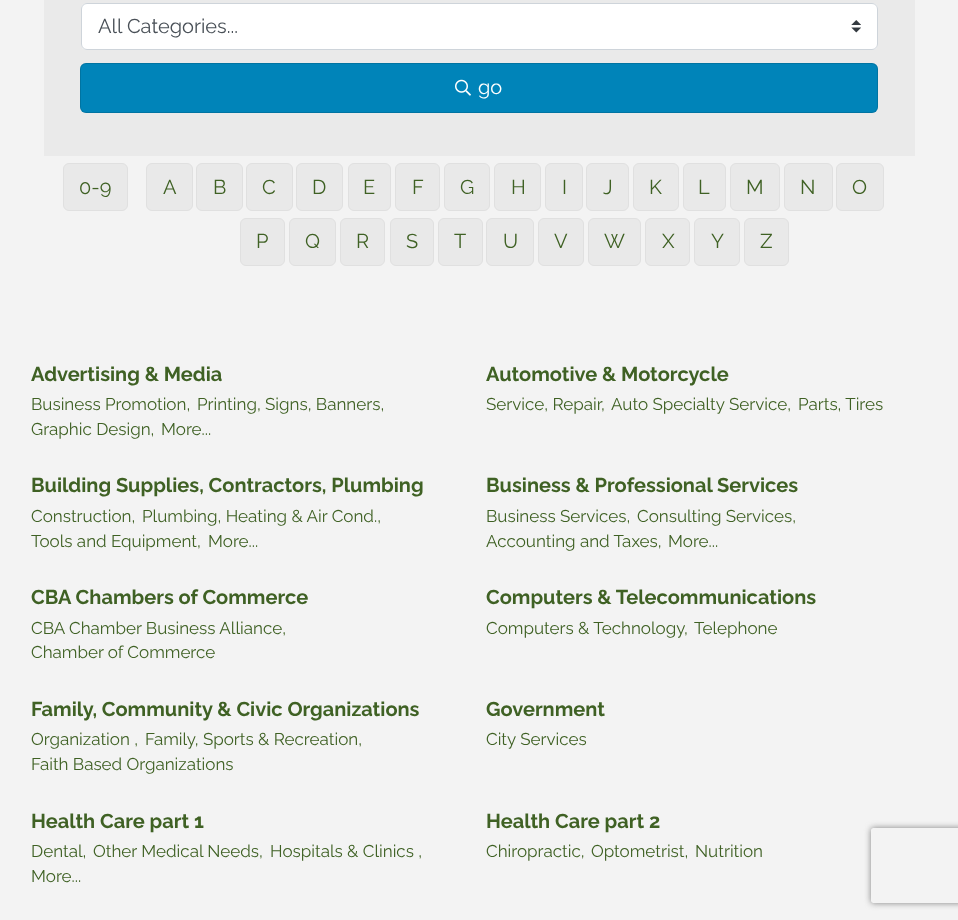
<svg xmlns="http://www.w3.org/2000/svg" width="958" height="920">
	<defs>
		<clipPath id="clip1"><path d="M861 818H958V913H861ZM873.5 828H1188.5C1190 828 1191 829 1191 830.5V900.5C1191 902 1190 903 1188.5 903H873.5C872 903 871 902 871 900.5V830.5C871 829 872 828 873.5 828Z" clip-rule="evenodd" /></clipPath>
	</defs>
	<rect width="100%" height="100%" fill="#F3F3F3" />
	<rect x="44" y="0" width="871" height="156" fill="#EAEAEA" />
	<rect x="81" y="3" width="797" height="47" rx="6" fill="#FFFFFF" />
	<image x="851" y="20" width="10" height="13" href="assets/img1.png" />
	<rect x="81.5" y="3.5" width="796" height="46" rx="5.5" fill="none" stroke="#CED4DA" />
	<text x="98" y="33" font-family="Raleway" font-size="20" fill="#495057">All Categories...</text>
	<rect x="80" y="63" width="798" height="50" rx="6" fill="#0084B9" />
	<rect x="80.5" y="63.5" width="797" height="49" rx="5.5" fill="none" stroke="#000000" stroke-opacity="0.12" />
	<image x="455" y="79" width="16" height="17" href="assets/img2.png" />
	<text x="478" y="94" font-family="Raleway" font-size="20" fill="#FFFFFF">go</text>
	<rect x="63.5" y="163.5" width="64" height="47" rx="5.5" fill="#E9E9E9" stroke="#E0E0E0" />
	<text x="79" y="194" font-family="Raleway" font-size="20" fill="#3F6124">0-9</text>
	<rect x="146.5" y="163.5" width="46" height="47" rx="5.5" fill="#E9E9E9" stroke="#E0E0E0" />
	<text x="163" y="194" font-family="Raleway" font-size="20" fill="#3F6124">A</text>
	<rect x="196.5" y="163.5" width="46" height="47" rx="5.5" fill="#E9E9E9" stroke="#E0E0E0" />
	<text x="213" y="194" font-family="Raleway" font-size="20" fill="#3F6124">B</text>
	<rect x="246.5" y="163.5" width="46" height="47" rx="5.5" fill="#E9E9E9" stroke="#E0E0E0" />
	<text x="262" y="194" font-family="Raleway" font-size="20" fill="#3F6124">C</text>
	<rect x="296.5" y="163.5" width="46" height="47" rx="5.5" fill="#E9E9E9" stroke="#E0E0E0" />
	<text x="312" y="194" font-family="Raleway" font-size="20" fill="#3F6124">D</text>
	<rect x="348.5" y="163.5" width="42" height="47" rx="5.5" fill="#E9E9E9" stroke="#E0E0E0" />
	<text x="363" y="194" font-family="Raleway" font-size="20" fill="#3F6124">E</text>
	<rect x="395.5" y="163.5" width="44" height="47" rx="5.5" fill="#E9E9E9" stroke="#E0E0E0" />
	<text x="412" y="194" font-family="Raleway" font-size="20" fill="#3F6124">F</text>
	<rect x="444.5" y="163.5" width="45" height="47" rx="5.5" fill="#E9E9E9" stroke="#E0E0E0" />
	<text x="460" y="194" font-family="Raleway" font-size="20" fill="#3F6124">G</text>
	<rect x="494.5" y="163.5" width="46" height="47" rx="5.5" fill="#E9E9E9" stroke="#E0E0E0" />
	<text x="511" y="194" font-family="Raleway" font-size="20" fill="#3F6124">H</text>
	<rect x="545.5" y="163.5" width="37" height="47" rx="5.5" fill="#E9E9E9" stroke="#E0E0E0" />
	<text x="562" y="194" font-family="Raleway" font-size="20" fill="#3F6124">I</text>
	<rect x="586.5" y="163.5" width="42" height="47" rx="5.5" fill="#E9E9E9" stroke="#E0E0E0" />
	<text x="603" y="194" font-family="Raleway" font-size="20" fill="#3F6124">J</text>
	<rect x="633.5" y="163.5" width="45" height="47" rx="5.5" fill="#E9E9E9" stroke="#E0E0E0" />
	<text x="649" y="194" font-family="Raleway" font-size="20" fill="#3F6124">K</text>
	<rect x="683.5" y="163.5" width="42" height="47" rx="5.5" fill="#E9E9E9" stroke="#E0E0E0" />
	<text x="698" y="194" font-family="Raleway" font-size="20" fill="#3F6124">L</text>
	<rect x="730.5" y="163.5" width="49" height="47" rx="5.5" fill="#E9E9E9" stroke="#E0E0E0" />
	<text x="746" y="194" font-family="Raleway" font-size="20" fill="#3F6124">M</text>
	<rect x="784.5" y="163.5" width="48" height="47" rx="5.5" fill="#E9E9E9" stroke="#E0E0E0" />
	<text x="800" y="194" font-family="Raleway" font-size="20" fill="#3F6124">N</text>
	<rect x="836.5" y="163.5" width="47" height="47" rx="5.5" fill="#E9E9E9" stroke="#E0E0E0" />
	<text x="852" y="194" font-family="Raleway" font-size="20" fill="#3F6124">O</text>
	<rect x="240.5" y="218.5" width="44" height="47" rx="5.5" fill="#E9E9E9" stroke="#E0E0E0" />
	<text x="256" y="248" font-family="Raleway" font-size="20" fill="#3F6124">P</text>
	<rect x="289.5" y="218.5" width="46" height="47" rx="5.5" fill="#E9E9E9" stroke="#E0E0E0" />
	<text x="305" y="248" font-family="Raleway" font-size="20" fill="#3F6124">Q</text>
	<rect x="340.5" y="218.5" width="44" height="47" rx="5.5" fill="#E9E9E9" stroke="#E0E0E0" />
	<text x="356" y="248" font-family="Raleway" font-size="20" fill="#3F6124">R</text>
	<rect x="390.5" y="218.5" width="43" height="47" rx="5.5" fill="#E9E9E9" stroke="#E0E0E0" />
	<text x="406" y="248" font-family="Raleway" font-size="20" fill="#3F6124">S</text>
	<rect x="438.5" y="218.5" width="44" height="47" rx="5.5" fill="#E9E9E9" stroke="#E0E0E0" />
	<text x="454" y="248" font-family="Raleway" font-size="20" fill="#3F6124">T</text>
	<rect x="486.5" y="218.5" width="47" height="47" rx="5.5" fill="#E9E9E9" stroke="#E0E0E0" />
	<text x="503" y="248" font-family="Raleway" font-size="20" fill="#3F6124">U</text>
	<rect x="538.5" y="218.5" width="45" height="47" rx="5.5" fill="#E9E9E9" stroke="#E0E0E0" />
	<text x="554" y="248" font-family="Raleway" font-size="20" fill="#3F6124">V</text>
	<rect x="588.5" y="218.5" width="52" height="47" rx="5.5" fill="#E9E9E9" stroke="#E0E0E0" />
	<text x="604" y="248" font-family="Raleway" font-size="20" fill="#3F6124">W</text>
	<rect x="645.5" y="218.5" width="44" height="47" rx="5.5" fill="#E9E9E9" stroke="#E0E0E0" />
	<text x="662" y="248" font-family="Raleway" font-size="20" fill="#3F6124">X</text>
	<rect x="694.5" y="218.5" width="45" height="47" rx="5.5" fill="#E9E9E9" stroke="#E0E0E0" />
	<text x="711" y="248" font-family="Raleway" font-size="20" fill="#3F6124">Y</text>
	<rect x="744.5" y="218.5" width="44" height="47" rx="5.5" fill="#E9E9E9" stroke="#E0E0E0" />
	<text x="760" y="248" font-family="Raleway" font-size="20" fill="#3F6124">Z</text>
	<text x="31" y="381" font-family="Raleway" font-size="20" font-weight="700" fill="#3F6124">Advertising &amp; Media</text>
	<g font-family="Raleway" font-size="17" fill="#3F6124">
		<text x="31" y="410">Business Promotion,</text>
		<text x="197" y="410">Printing, Signs, Banners,</text>
		<text x="31" y="435">Graphic Design,</text>
		<text x="161" y="435">More...</text>
	</g>
	<text x="486" y="381" font-family="Raleway" font-size="20" font-weight="700" fill="#3F6124">Automotive &amp; Motorcycle</text>
	<g font-family="Raleway" font-size="17" fill="#3F6124">
		<text x="486" y="410">Service, Repair,</text>
		<text x="611" y="410">Auto Specialty Service,</text>
		<text x="798" y="410">Parts, Tires</text>
	</g>
	<text x="31" y="492" font-family="Raleway" font-size="20" font-weight="700" fill="#3F6124">Building Supplies, Contractors, Plumbing</text>
	<g font-family="Raleway" font-size="17" fill="#3F6124">
		<text x="31" y="522">Construction,</text>
		<text x="142" y="522">Plumbing, Heating &amp; Air Cond.,</text>
		<text x="31" y="547">Tools and Equipment,</text>
		<text x="208" y="547">More...</text>
	</g>
	<text x="486" y="492" font-family="Raleway" font-size="20" font-weight="700" fill="#3F6124">Business &amp; Professional Services</text>
	<g font-family="Raleway" font-size="17" fill="#3F6124">
		<text x="486" y="522">Business Services,</text>
		<text x="637" y="522">Consulting Services,</text>
		<text x="486" y="547">Accounting and Taxes,</text>
		<text x="668" y="547">More...</text>
	</g>
	<text x="31" y="604" font-family="Raleway" font-size="20" font-weight="700" fill="#3F6124">CBA Chambers of Commerce</text>
	<g font-family="Raleway" font-size="17" fill="#3F6124">
		<text x="31" y="634">CBA Chamber Business Alliance,</text>
		<text x="31" y="658">Chamber of Commerce</text>
	</g>
	<text x="486" y="604" font-family="Raleway" font-size="20" font-weight="700" fill="#3F6124">Computers &amp; Telecommunications</text>
	<g font-family="Raleway" font-size="17" fill="#3F6124">
		<text x="486" y="634">Computers &amp; Technology,</text>
		<text x="694" y="634">Telephone</text>
	</g>
	<text x="31" y="716" font-family="Raleway" font-size="20" font-weight="700" fill="#3F6124">Family, Community &amp; Civic Organizations</text>
	<g font-family="Raleway" font-size="17" fill="#3F6124">
		<text x="31" y="745">Organization ,</text>
		<text x="145" y="745">Family, Sports &amp; Recreation,</text>
		<text x="31" y="770">Faith Based Organizations</text>
	</g>
	<text x="486" y="716" font-family="Raleway" font-size="20" font-weight="700" fill="#3F6124">Government</text>
	<text x="486" y="745" font-family="Raleway" font-size="17" fill="#3F6124">City Services</text>
	<text x="31" y="828" font-family="Raleway" font-size="20" font-weight="700" fill="#3F6124">Health Care part 1</text>
	<g font-family="Raleway" font-size="17" fill="#3F6124">
		<text x="31" y="857">Dental,</text>
		<text x="93" y="857">Other Medical Needs,</text>
		<text x="270" y="857">Hospitals &amp; Clinics ,</text>
		<text x="31" y="882">More...</text>
	</g>
	<text x="486" y="828" font-family="Raleway" font-size="20" font-weight="700" fill="#3F6124">Health Care part 2</text>
	<g font-family="Raleway" font-size="17" fill="#3F6124">
		<text x="486" y="857">Chiropractic,</text>
		<text x="591" y="857">Optometrist,</text>
		<text x="695" y="857">Nutrition</text>
	</g>
	<g clip-path="url(#clip1)">
		<rect x="871" y="828" width="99" height="75" rx="2.5" fill="#808080" filter="blur(3px)" />
	</g>
</svg>
